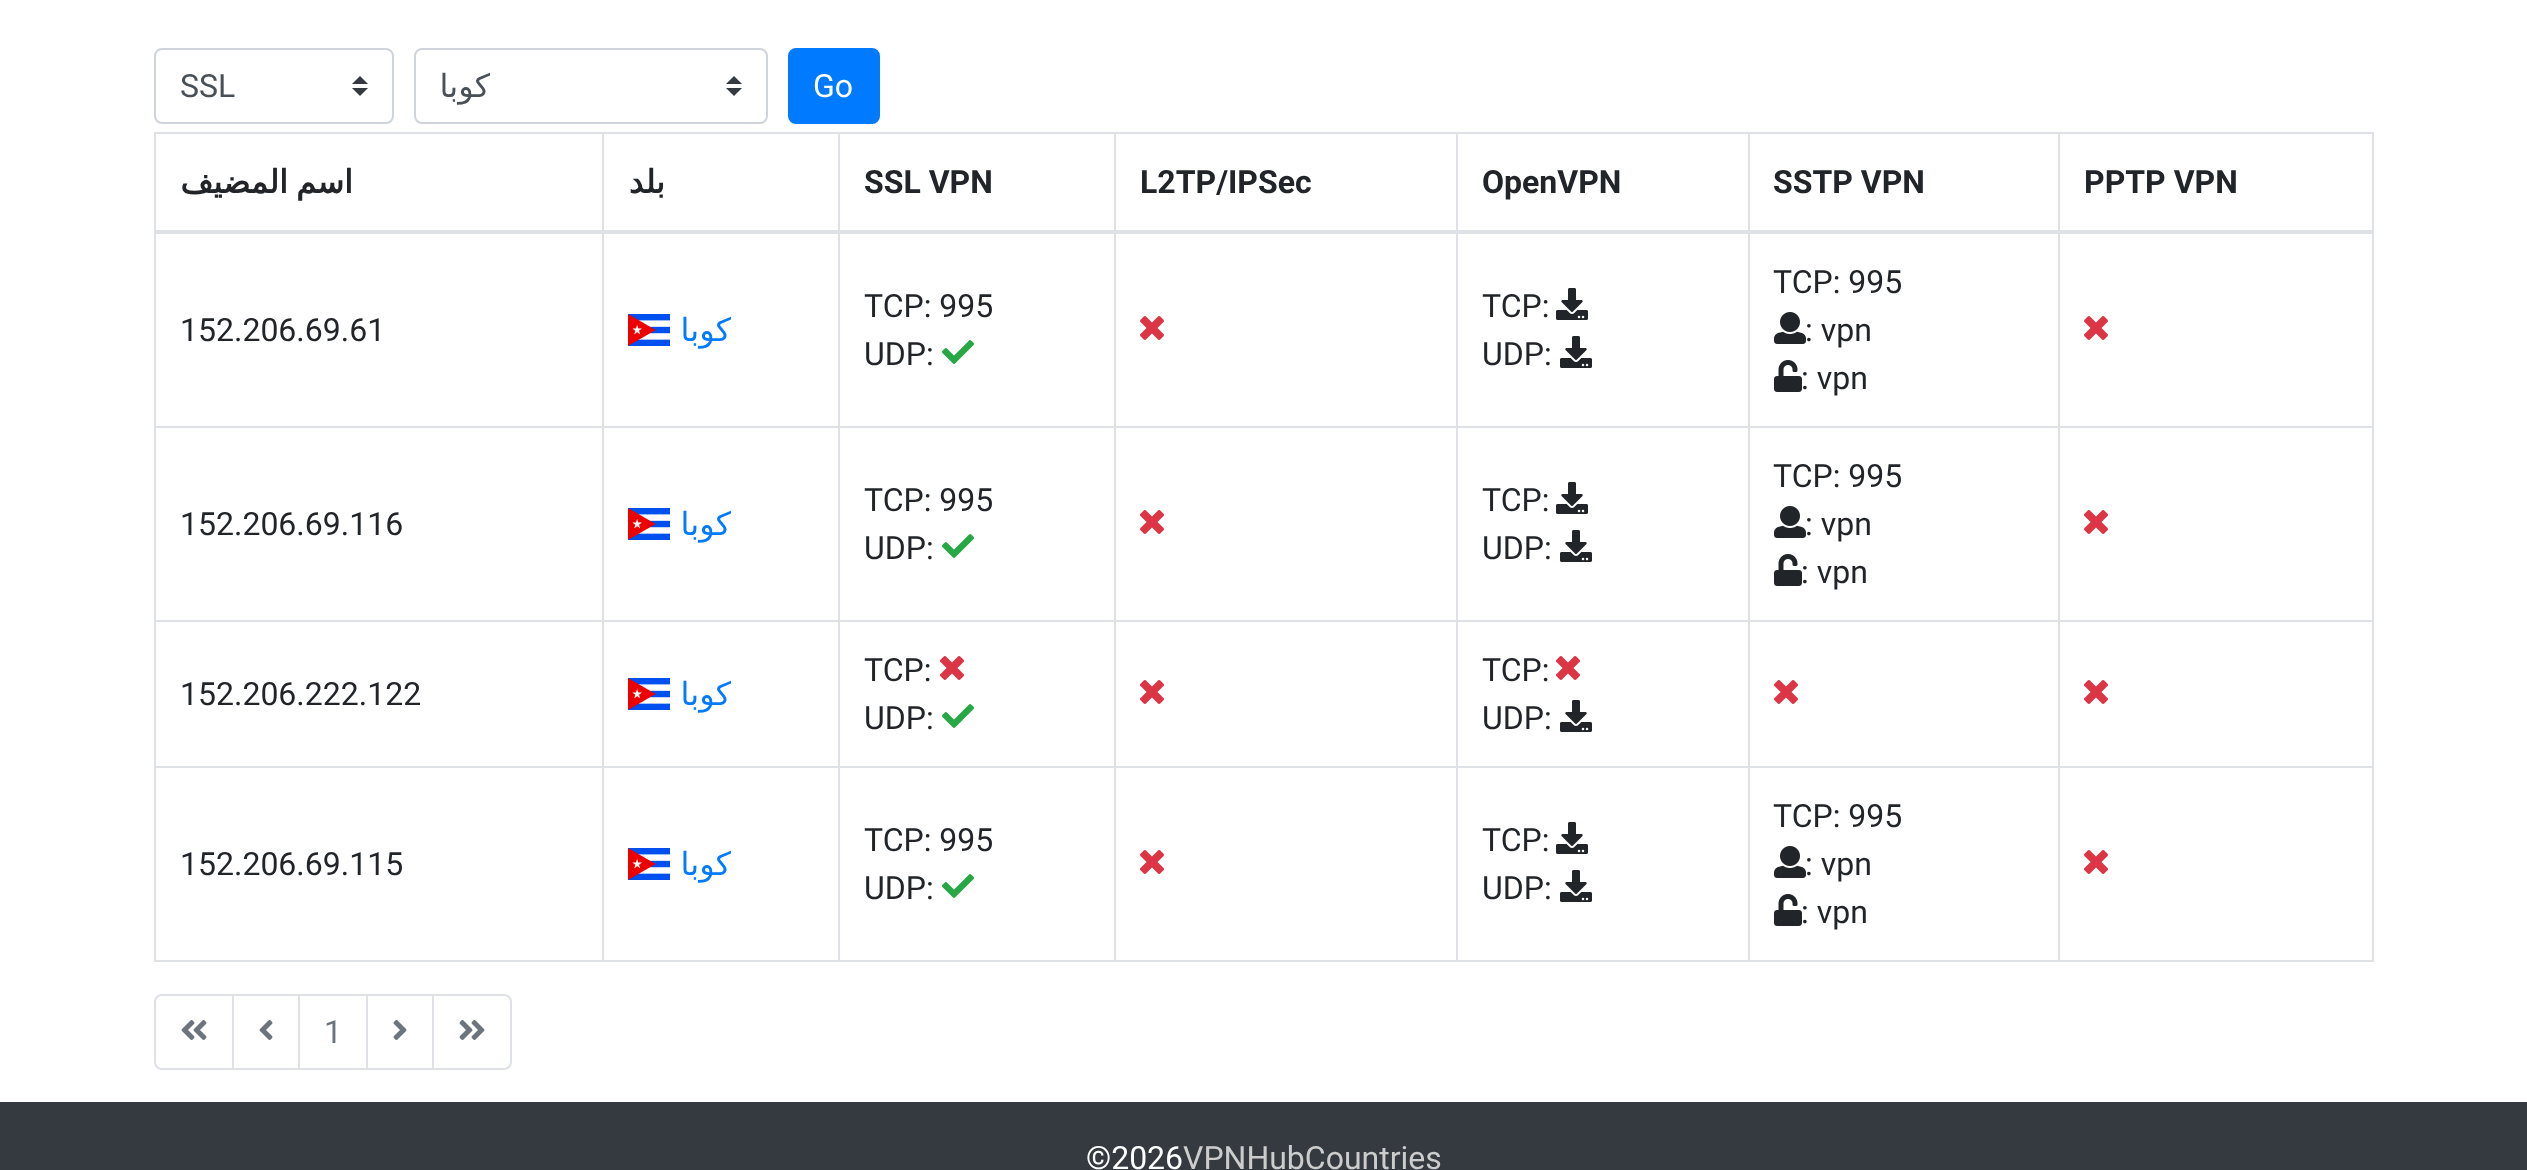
<svg xmlns="http://www.w3.org/2000/svg" width="2527" height="1170">
	<rect width="100%" height="100%" fill="#FFFFFF" />
	<path d="M360 76L352 84H368ZM360 96L352 88H368Z" fill="#343A40" />
	<rect x="155" y="49" width="238" height="74" rx="7" fill="none" stroke="#CED4DA" stroke-width="2" />
	<text x="180" y="97" font-family="Roboto" font-size="32" fill="#495057">SSL</text>
	<path d="M734 76L726 84H742ZM734 96L726 88H742Z" fill="#343A40" />
	<rect x="415" y="49" width="352" height="74" rx="7" fill="none" stroke="#CED4DA" stroke-width="2" />
	<text x="490" y="97" font-family="DejaVu Sans" font-size="32" direction="rtl" fill="#495057">كوبا</text>
	<rect x="789" y="49" width="90" height="74" rx="7" fill="#007BFF" stroke="#007BFF" stroke-width="2" />
	<text x="813" y="97" font-family="Roboto" font-size="32" fill="#FFFFFF">Go</text>
	<rect x="2058" y="132" width="316" height="2" fill="#DEE2E6" />
	<rect x="2058" y="426" width="316" height="2" fill="#DEE2E6" />
	<rect x="2058" y="620" width="316" height="2" fill="#DEE2E6" />
	<rect x="2058" y="766" width="316" height="2" fill="#DEE2E6" />
	<rect x="2372" y="766" width="2" height="196" fill="#DEE2E6" />
	<rect x="2058" y="960" width="316" height="2" fill="#DEE2E6" />
	<rect x="2058" y="766" width="2" height="196" fill="#DEE2E6" />
	<rect x="1748" y="766" width="312" height="2" fill="#DEE2E6" />
	<rect x="2058" y="620" width="2" height="148" fill="#DEE2E6" />
	<rect x="1748" y="620" width="312" height="2" fill="#DEE2E6" />
	<rect x="2058" y="426" width="2" height="196" fill="#DEE2E6" />
	<rect x="1748" y="426" width="312" height="2" fill="#DEE2E6" />
	<rect x="2058" y="232" width="2" height="196" fill="#DEE2E6" />
	<rect x="2058" y="132" width="2" height="102" fill="#DEE2E6" />
	<rect x="1748" y="132" width="312" height="2" fill="#DEE2E6" />
	<rect x="1748" y="960" width="312" height="2" fill="#DEE2E6" />
	<rect x="1748" y="766" width="2" height="196" fill="#DEE2E6" />
	<rect x="1456" y="766" width="294" height="2" fill="#DEE2E6" />
	<rect x="1748" y="620" width="2" height="148" fill="#DEE2E6" />
	<rect x="1456" y="620" width="294" height="2" fill="#DEE2E6" />
	<rect x="1748" y="426" width="2" height="196" fill="#DEE2E6" />
	<rect x="1456" y="426" width="294" height="2" fill="#DEE2E6" />
	<rect x="1748" y="232" width="2" height="196" fill="#DEE2E6" />
	<rect x="1748" y="132" width="2" height="102" fill="#DEE2E6" />
	<rect x="1456" y="132" width="294" height="2" fill="#DEE2E6" />
	<rect x="1456" y="960" width="294" height="2" fill="#DEE2E6" />
	<rect x="1456" y="766" width="2" height="196" fill="#DEE2E6" />
	<rect x="1114" y="766" width="344" height="2" fill="#DEE2E6" />
	<rect x="1456" y="620" width="2" height="148" fill="#DEE2E6" />
	<rect x="1114" y="620" width="344" height="2" fill="#DEE2E6" />
	<rect x="1456" y="426" width="2" height="196" fill="#DEE2E6" />
	<rect x="1114" y="426" width="344" height="2" fill="#DEE2E6" />
	<rect x="1456" y="232" width="2" height="196" fill="#DEE2E6" />
	<rect x="1456" y="132" width="2" height="102" fill="#DEE2E6" />
	<rect x="1114" y="132" width="344" height="2" fill="#DEE2E6" />
	<rect x="1114" y="960" width="344" height="2" fill="#DEE2E6" />
	<rect x="1114" y="766" width="2" height="196" fill="#DEE2E6" />
	<rect x="838" y="766" width="278" height="2" fill="#DEE2E6" />
	<rect x="1114" y="620" width="2" height="148" fill="#DEE2E6" />
	<rect x="838" y="620" width="278" height="2" fill="#DEE2E6" />
	<rect x="1114" y="426" width="2" height="196" fill="#DEE2E6" />
	<rect x="838" y="426" width="278" height="2" fill="#DEE2E6" />
	<rect x="1114" y="232" width="2" height="196" fill="#DEE2E6" />
	<rect x="1114" y="132" width="2" height="102" fill="#DEE2E6" />
	<rect x="838" y="132" width="278" height="2" fill="#DEE2E6" />
	<rect x="838" y="960" width="278" height="2" fill="#DEE2E6" />
	<rect x="838" y="766" width="2" height="196" fill="#DEE2E6" />
	<rect x="602" y="766" width="238" height="2" fill="#DEE2E6" />
	<rect x="838" y="620" width="2" height="148" fill="#DEE2E6" />
	<rect x="602" y="620" width="238" height="2" fill="#DEE2E6" />
	<rect x="838" y="426" width="2" height="196" fill="#DEE2E6" />
	<rect x="602" y="426" width="238" height="2" fill="#DEE2E6" />
	<rect x="838" y="232" width="2" height="196" fill="#DEE2E6" />
	<rect x="838" y="132" width="2" height="102" fill="#DEE2E6" />
	<rect x="602" y="132" width="238" height="2" fill="#DEE2E6" />
	<rect x="602" y="960" width="238" height="2" fill="#DEE2E6" />
	<rect x="602" y="766" width="2" height="196" fill="#DEE2E6" />
	<rect x="154" y="766" width="450" height="2" fill="#DEE2E6" />
	<rect x="602" y="620" width="2" height="148" fill="#DEE2E6" />
	<rect x="154" y="620" width="450" height="2" fill="#DEE2E6" />
	<rect x="602" y="426" width="2" height="196" fill="#DEE2E6" />
	<rect x="154" y="426" width="450" height="2" fill="#DEE2E6" />
	<rect x="602" y="232" width="2" height="196" fill="#DEE2E6" />
	<rect x="602" y="132" width="2" height="102" fill="#DEE2E6" />
	<rect x="154" y="132" width="450" height="2" fill="#DEE2E6" />
	<rect x="154" y="960" width="450" height="2" fill="#DEE2E6" />
	<rect x="154" y="766" width="2" height="196" fill="#DEE2E6" />
	<rect x="154" y="620" width="2" height="148" fill="#DEE2E6" />
	<rect x="154" y="232" width="2" height="390" fill="#DEE2E6" />
	<rect x="154" y="132" width="2" height="102" fill="#DEE2E6" />
	<g font-family="DejaVu Sans" font-size="32" font-weight="700" direction="rtl" fill="#212529">
		<text x="353" y="193" word-spacing="-2">اسم المضيف</text>
		<text x="665" y="193">بلد</text>
	</g>
	<g font-family="Roboto" font-size="32" font-weight="700" fill="#212529">
		<text x="864" y="193">SSL VPN</text>
		<text x="1140" y="193">L2TP/IPSec</text>
		<text x="1482" y="193">OpenVPN</text>
		<text x="1773" y="193">SSTP VPN</text>
	</g>
	<rect x="2372" y="620" width="2" height="148" fill="#DEE2E6" />
	<rect x="2372" y="232" width="2" height="390" fill="#DEE2E6" />
	<rect x="2372" y="132" width="2" height="102" fill="#DEE2E6" />
	<rect x="154" y="230" width="2220" height="4" fill="#DEE2E6" />
	<text x="2084" y="193" font-family="Roboto" font-size="32" font-weight="700" fill="#212529">PPTP VPN</text>
	<text x="180" y="341" font-family="Roboto" font-size="32" fill="#212529">152.206.69.61</text>
	<image x="628" y="314" width="42" height="32" href="assets/img1.png" />
	<text x="731" y="341" font-family="DejaVu Sans" font-size="32" direction="rtl" fill="#007BFF">كوبا</text>
	<g font-family="Roboto" font-size="32" fill="#212529">
		<text x="864" y="317">TCP: 995</text>
		<text x="864" y="365">UDP:</text>
	</g>
	<image x="942" y="340" width="32" height="24" href="assets/img2.png" />
	<image x="1140" y="316" width="24" height="24" href="assets/img3.png" />
	<text x="1482" y="317" font-family="Roboto" font-size="32" fill="#212529">TCP:</text>
	<image x="1556" y="288" width="32" height="32" href="assets/img4.png" />
	<text x="1482" y="365" font-family="Roboto" font-size="32" fill="#212529">UDP:</text>
	<image x="1560" y="336" width="32" height="32" href="assets/img4.png" />
	<text x="1773" y="293" font-family="Roboto" font-size="32" fill="#212529">TCP: 995</text>
	<image x="1774" y="312" width="32" height="32" href="assets/img5.png" />
	<text x="1805" y="341" font-family="Roboto" font-size="32" fill="#212529">: vpn</text>
	<image x="1774" y="360" width="28" height="32" href="assets/img6.png" />
	<text x="1801" y="389" font-family="Roboto" font-size="32" fill="#212529">: vpn</text>
	<image x="2084" y="316" width="24" height="24" href="assets/img3.png" />
	<text x="180" y="535" font-family="Roboto" font-size="32" fill="#212529">152.206.69.116</text>
	<image x="628" y="508" width="42" height="32" href="assets/img1.png" />
	<text x="731" y="535" font-family="DejaVu Sans" font-size="32" direction="rtl" fill="#007BFF">كوبا</text>
	<g font-family="Roboto" font-size="32" fill="#212529">
		<text x="864" y="511">TCP: 995</text>
		<text x="864" y="559">UDP:</text>
	</g>
	<image x="942" y="534" width="32" height="24" href="assets/img2.png" />
	<image x="1140" y="510" width="24" height="24" href="assets/img3.png" />
	<text x="1482" y="511" font-family="Roboto" font-size="32" fill="#212529">TCP:</text>
	<image x="1556" y="482" width="32" height="32" href="assets/img4.png" />
	<text x="1482" y="559" font-family="Roboto" font-size="32" fill="#212529">UDP:</text>
	<image x="1560" y="530" width="32" height="32" href="assets/img4.png" />
	<text x="1773" y="487" font-family="Roboto" font-size="32" fill="#212529">TCP: 995</text>
	<image x="1774" y="506" width="32" height="32" href="assets/img5.png" />
	<text x="1805" y="535" font-family="Roboto" font-size="32" fill="#212529">: vpn</text>
	<image x="1774" y="554" width="28" height="32" href="assets/img6.png" />
	<text x="1801" y="583" font-family="Roboto" font-size="32" fill="#212529">: vpn</text>
	<image x="2084" y="510" width="24" height="24" href="assets/img3.png" />
	<text x="180" y="705" font-family="Roboto" font-size="32" fill="#212529">152.206.222.122</text>
	<image x="628" y="678" width="42" height="32" href="assets/img1.png" />
	<text x="731" y="705" font-family="DejaVu Sans" font-size="32" direction="rtl" fill="#007BFF">كوبا</text>
	<text x="864" y="681" font-family="Roboto" font-size="32" fill="#212529">TCP:</text>
	<image x="940" y="656" width="24" height="24" href="assets/img3.png" />
	<text x="864" y="729" font-family="Roboto" font-size="32" fill="#212529">UDP:</text>
	<image x="942" y="704" width="32" height="24" href="assets/img2.png" />
	<image x="1140" y="680" width="24" height="24" href="assets/img3.png" />
	<text x="1482" y="681" font-family="Roboto" font-size="32" fill="#212529">TCP:</text>
	<image x="1556" y="656" width="24" height="24" href="assets/img3.png" />
	<text x="1482" y="729" font-family="Roboto" font-size="32" fill="#212529">UDP:</text>
	<image x="1560" y="700" width="32" height="32" href="assets/img4.png" />
	<image x="1774" y="680" width="24" height="24" href="assets/img3.png" />
	<image x="2084" y="680" width="24" height="24" href="assets/img3.png" />
	<text x="180" y="875" font-family="Roboto" font-size="32" fill="#212529">152.206.69.115</text>
	<image x="628" y="848" width="42" height="32" href="assets/img1.png" />
	<text x="731" y="875" font-family="DejaVu Sans" font-size="32" direction="rtl" fill="#007BFF">كوبا</text>
	<g font-family="Roboto" font-size="32" fill="#212529">
		<text x="864" y="851">TCP: 995</text>
		<text x="864" y="899">UDP:</text>
	</g>
	<image x="942" y="874" width="32" height="24" href="assets/img2.png" />
	<image x="1140" y="850" width="24" height="24" href="assets/img3.png" />
	<text x="1482" y="851" font-family="Roboto" font-size="32" fill="#212529">TCP:</text>
	<image x="1556" y="822" width="32" height="32" href="assets/img4.png" />
	<text x="1482" y="899" font-family="Roboto" font-size="32" fill="#212529">UDP:</text>
	<image x="1560" y="870" width="32" height="32" href="assets/img4.png" />
	<text x="1773" y="827" font-family="Roboto" font-size="32" fill="#212529">TCP: 995</text>
	<image x="1774" y="846" width="32" height="32" href="assets/img5.png" />
	<text x="1805" y="875" font-family="Roboto" font-size="32" fill="#212529">: vpn</text>
	<image x="1774" y="894" width="28" height="32" href="assets/img6.png" />
	<text x="1801" y="923" font-family="Roboto" font-size="32" fill="#212529">: vpn</text>
	<image x="2084" y="850" width="24" height="24" href="assets/img3.png" />
	<path d="M162 995H233V1069H162C158 1069 155 1066 155 1062V1002C155 998 158 995 162 995Z" fill="none" stroke="#DEE2E6" stroke-width="2" />
	<image x="181" y="1020" width="26" height="20" href="assets/img7.png" />
	<rect x="233" y="995" width="66" height="74" fill="none" stroke="#DEE2E6" stroke-width="2" />
	<image x="259" y="1020" width="14" height="20" href="assets/img8.png" />
	<rect x="299" y="995" width="68" height="74" fill="none" stroke="#DEE2E6" stroke-width="2" />
	<text x="324" y="1043" font-family="Roboto" font-size="32" fill="#6C757D">1</text>
	<rect x="367" y="995" width="66" height="74" fill="none" stroke="#DEE2E6" stroke-width="2" />
	<image x="393" y="1020" width="14" height="20" href="assets/img9.png" />
	<path d="M433 995H504C508 995 511 998 511 1002V1062C511 1066 508 1069 504 1069H433Z" fill="#FFFFFF" stroke="#DEE2E6" stroke-width="2" />
	<image x="459" y="1020" width="26" height="20" href="assets/img10.png" />
	<rect x="0" y="1102" width="2527" height="68" fill="#343A40" />
	<text x="1086" y="1169" font-family="Roboto" font-size="32" fill="#FFFFFF">©2026</text>
	<text x="1183" y="1169" font-family="Roboto" font-size="32" fill="#CCCCCC">VPNHubCountries</text>
</svg>
